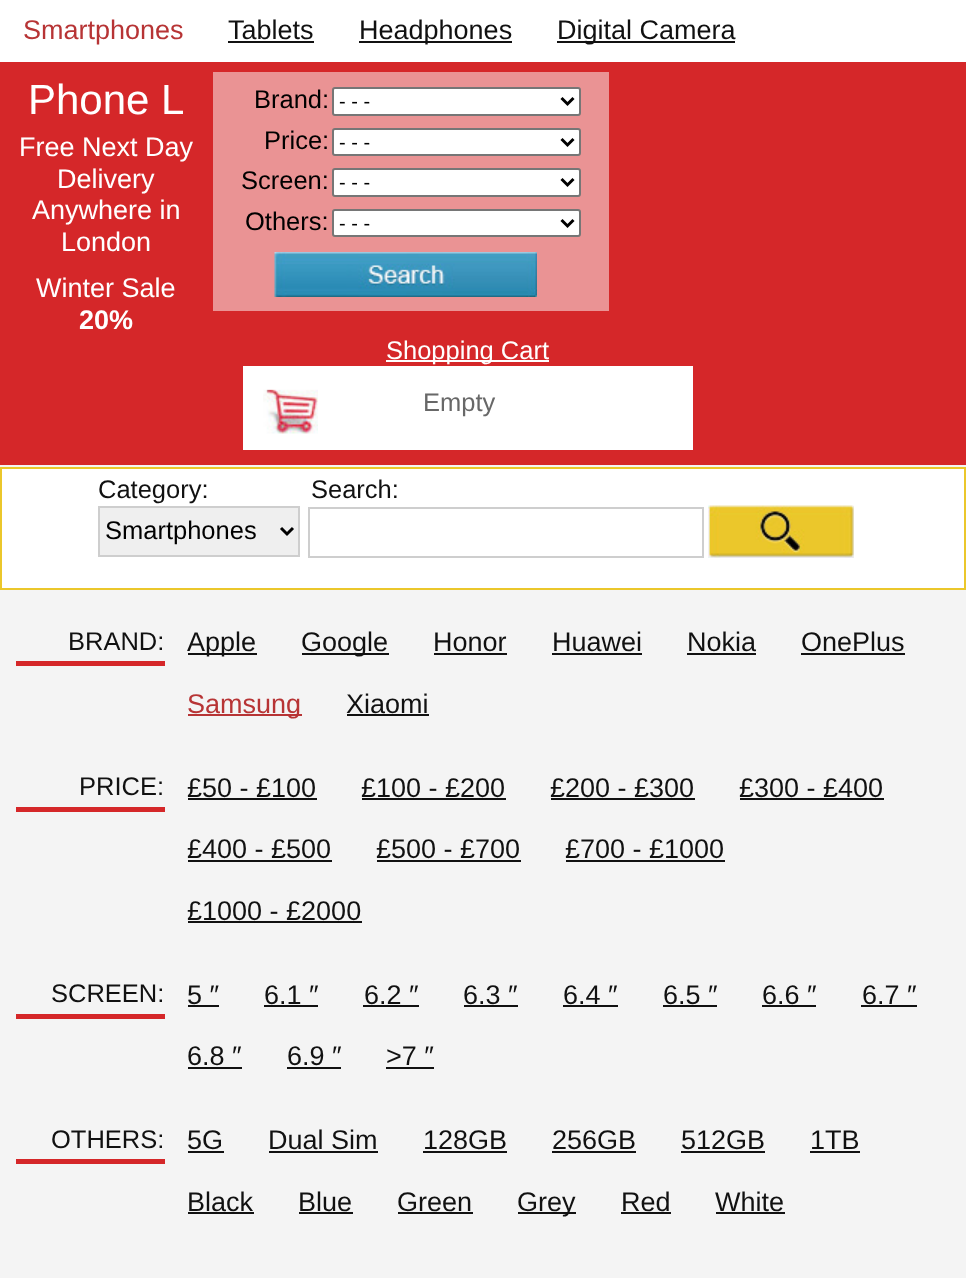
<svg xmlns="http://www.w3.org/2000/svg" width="966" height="1278">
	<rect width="100%" height="100%" fill="#F4F4F4" />
	<rect x="0" y="0" width="966" height="62" fill="#FFFFFF" />
	<text x="23" y="39" font-family="Liberation Sans" font-size="27" fill="#B73435">Smartphones</text>
	<text x="228" y="39" font-family="Liberation Sans" font-size="27" fill="#111111">Tablets</text>
	<rect x="228" y="41" width="86" height="2" fill="#111111" />
	<rect x="359" y="41" width="153" height="2" fill="#111111" />
	<text x="359" y="39" font-family="Liberation Sans" font-size="27" fill="#111111">Headphones</text>
	<rect x="557" y="41" width="178" height="2" fill="#111111" />
	<text x="557" y="39" font-family="Liberation Sans" font-size="27" fill="#111111">Digital Camera</text>
	<rect x="0" y="62" width="966" height="403" fill="#D52729" />
	<text x="28" y="114" font-family="Liberation Sans" font-size="42" fill="#FFFFFF">Phone L</text>
	<g font-family="Liberation Sans" font-size="27" fill="#FFFFFF">
		<text x="19" y="156">Free Next Day</text>
		<text x="57" y="188">Delivery</text>
		<text x="32" y="219">Anywhere in</text>
		<text x="61" y="251">London</text>
		<text x="36" y="297">Winter Sale</text>
	</g>
	<text x="79" y="329" font-family="Liberation Sans" font-size="27" font-weight="700" fill="#FFFFFF">20%</text>
	<rect x="213" y="72" width="396" height="239" fill="#EA9394" />
	<text x="254" y="108" font-family="Liberation Sans" font-size="25.5" fill="#000000">Brand:</text>
	<rect x="333" y="88" width="247" height="27" rx="2" fill="#FFFFFF" stroke="#767676" stroke-width="2" />
	<path d="M561.5 98L567.5 104L573.5 98" fill="none" stroke="#000000" stroke-width="3" />
	<text x="339" y="108" font-family="Liberation Sans" font-size="20" fill="#000000">- - -</text>
	<text x="264" y="149" font-family="Liberation Sans" font-size="25.5" fill="#000000">Price:</text>
	<rect x="333" y="129" width="247" height="26" rx="2" fill="#FFFFFF" stroke="#767676" stroke-width="2" />
	<path d="M561.5 139L567.5 145L573.5 139" fill="none" stroke="#000000" stroke-width="3" />
	<text x="339" y="149" font-family="Liberation Sans" font-size="20" fill="#000000">- - -</text>
	<text x="241" y="189" font-family="Liberation Sans" font-size="25.5" fill="#000000">Screen:</text>
	<rect x="333" y="169" width="247" height="27" rx="2" fill="#FFFFFF" stroke="#767676" stroke-width="2" />
	<path d="M561.5 179L567.5 185L573.5 179" fill="none" stroke="#000000" stroke-width="3" />
	<text x="339" y="189" font-family="Liberation Sans" font-size="20" fill="#000000">- - -</text>
	<text x="245" y="230" font-family="Liberation Sans" font-size="25.5" fill="#000000">Others:</text>
	<rect x="333" y="210" width="247" height="26" rx="2" fill="#FFFFFF" stroke="#767676" stroke-width="2" />
	<path d="M561.5 220L567.5 226L573.5 220" fill="none" stroke="#000000" stroke-width="3" />
	<text x="339" y="230" font-family="Liberation Sans" font-size="20" fill="#000000">- - -</text>
	<image x="274" y="252" width="263" height="45" href="assets/img1.png" />
	<rect x="386" y="360" width="163" height="2" fill="#FFFFFF" />
	<text x="386" y="359" font-family="Liberation Sans" font-size="25.5" fill="#FFFFFF">Shopping Cart</text>
	<rect x="243" y="366" width="450" height="84" fill="#FFFFFF" />
	<image x="263" y="389" width="55" height="45" href="assets/img2.png" />
	<text x="423" y="411" font-family="Liberation Sans" font-size="25.5" fill="#686868">Empty</text>
	<rect x="1" y="468" width="964" height="121" fill="#FFFFFF" stroke="#EBC72B" stroke-width="2" />
	<g font-family="Liberation Sans" font-size="25.5" fill="#111111">
		<text x="98" y="498">Category:</text>
		<text x="311" y="498">Search:</text>
	</g>
	<rect x="99" y="507" width="200" height="49" fill="#EFEFEF" stroke="#CECECE" stroke-width="2" />
	<path d="M281 528L287 534L293 528" fill="none" stroke="#000000" stroke-width="3" />
	<text x="105" y="539" font-family="Liberation Sans" font-size="25.5" fill="#000000">Smartphones</text>
	<rect x="309" y="508" width="394" height="49" fill="none" stroke="#CECECE" stroke-width="2" />
	<rect x="853" y="506" width="1" height="52" fill="#EFEFEF" />
	<image x="708" y="505" width="146" height="53" href="assets/img3.png" />
	<text x="68" y="650" font-family="Liberation Sans" font-size="25.5" fill="#111111">BRAND:</text>
	<rect x="16" y="661" width="149" height="5" fill="#D52729" />
	<rect x="188" y="653" width="69" height="2" fill="#111111" />
	<text x="187" y="651" font-family="Liberation Sans" font-size="27" fill="#111111">Apple</text>
	<rect x="302" y="653" width="87" height="2" fill="#111111" />
	<g font-family="Liberation Sans" font-size="27" fill="#111111">
		<text x="301" y="651">Google</text>
		<text x="433" y="651">Honor</text>
	</g>
	<rect x="434" y="653" width="73" height="2" fill="#111111" />
	<text x="552" y="651" font-family="Liberation Sans" font-size="27" fill="#111111">Huawei</text>
	<rect x="552" y="653" width="90" height="2" fill="#111111" />
	<text x="687" y="651" font-family="Liberation Sans" font-size="27" fill="#111111">Nokia</text>
	<rect x="687" y="653" width="69" height="2" fill="#111111" />
	<text x="801" y="651" font-family="Liberation Sans" font-size="27" fill="#111111">OnePlus</text>
	<rect x="801" y="653" width="104" height="2" fill="#111111" />
	<rect x="188" y="714" width="114" height="2" fill="#B73435" />
	<text x="187" y="713" font-family="Liberation Sans" font-size="27" fill="#B73435">Samsung</text>
	<text x="346" y="713" font-family="Liberation Sans" font-size="27" fill="#111111">Xiaomi</text>
	<rect x="347" y="714" width="82" height="2" fill="#111111" />
	<text x="79" y="795" font-family="Liberation Sans" font-size="25.5" fill="#111111">PRICE:</text>
	<rect x="16" y="807" width="149" height="5" fill="#D52729" />
	<text x="187" y="797" font-family="Liberation Sans" font-size="27" fill="#111111">£50 - £100</text>
	<rect x="188" y="798" width="129" height="2" fill="#111111" />
	<text x="361" y="797" font-family="Liberation Sans" font-size="27" fill="#111111">£100 - £200</text>
	<rect x="362" y="798" width="144" height="2" fill="#111111" />
	<text x="550" y="797" font-family="Liberation Sans" font-size="27" fill="#111111">£200 - £300</text>
	<rect x="551" y="798" width="144" height="2" fill="#111111" />
	<text x="739" y="797" font-family="Liberation Sans" font-size="27" fill="#111111">£300 - £400</text>
	<rect x="740" y="798" width="144" height="2" fill="#111111" />
	<text x="187" y="858" font-family="Liberation Sans" font-size="27" fill="#111111">£400 - £500</text>
	<rect x="188" y="860" width="144" height="2" fill="#111111" />
	<text x="376" y="858" font-family="Liberation Sans" font-size="27" fill="#111111">£500 - £700</text>
	<rect x="377" y="860" width="144" height="2" fill="#111111" />
	<text x="565" y="858" font-family="Liberation Sans" font-size="27" fill="#111111">£700 - £1000</text>
	<rect x="566" y="860" width="159" height="2" fill="#111111" />
	<text x="187" y="920" font-family="Liberation Sans" font-size="27" fill="#111111">£1000 - £2000</text>
	<rect x="188" y="921" width="174" height="2" fill="#111111" />
	<text x="51" y="1002" font-family="Liberation Sans" font-size="25.5" fill="#111111">SCREEN:</text>
	<rect x="16" y="1014" width="149" height="5" fill="#D52729" />
	<text x="187" y="1004" font-family="Liberation Sans" font-size="27" fill="#111111">5 ″</text>
	<rect x="188" y="1005" width="31" height="2" fill="#111111" />
	<text x="264" y="1004" font-family="Liberation Sans" font-size="27" fill="#111111">6.1 ″</text>
	<rect x="264" y="1005" width="54" height="2" fill="#111111" />
	<text x="364" y="1004" font-family="Liberation Sans" font-size="27" fill="#111111">6.2 ″</text>
	<rect x="363" y="1005" width="56" height="2" fill="#111111" />
	<text x="463" y="1004" font-family="Liberation Sans" font-size="27" fill="#111111">6.3 ″</text>
	<rect x="464" y="1005" width="54" height="2" fill="#111111" />
	<text x="563" y="1004" font-family="Liberation Sans" font-size="27" fill="#111111">6.4 ″</text>
	<rect x="563" y="1005" width="55" height="2" fill="#111111" />
	<text x="663" y="1004" font-family="Liberation Sans" font-size="27" fill="#111111">6.5 ″</text>
	<rect x="663" y="1005" width="54" height="2" fill="#111111" />
	<text x="762" y="1004" font-family="Liberation Sans" font-size="27" fill="#111111">6.6 ″</text>
	<rect x="762" y="1005" width="54" height="2" fill="#111111" />
	<text x="862" y="1004" font-family="Liberation Sans" font-size="27" fill="#111111">6.7 ″</text>
	<rect x="861" y="1005" width="56" height="2" fill="#111111" />
	<text x="187" y="1065" font-family="Liberation Sans" font-size="27" fill="#111111">6.8 ″</text>
	<rect x="188" y="1067" width="54" height="2" fill="#111111" />
	<text x="287" y="1065" font-family="Liberation Sans" font-size="27" fill="#111111">6.9 ″</text>
	<rect x="287" y="1067" width="54" height="2" fill="#111111" />
	<text x="386" y="1065" font-family="Liberation Sans" font-size="27" fill="#111111">&gt;7 ″</text>
	<rect x="386" y="1067" width="48" height="2" fill="#111111" />
	<text x="51" y="1148" font-family="Liberation Sans" font-size="25.5" fill="#111111">OTHERS:</text>
	<rect x="16" y="1159" width="149" height="5" fill="#D52729" />
	<text x="187" y="1149" font-family="Liberation Sans" font-size="27" fill="#111111">5G</text>
	<rect x="188" y="1151" width="36" height="2" fill="#111111" />
	<text x="268" y="1149" font-family="Liberation Sans" font-size="27" fill="#111111">Dual Sim</text>
	<rect x="269" y="1151" width="109" height="2" fill="#111111" />
	<text x="423" y="1149" font-family="Liberation Sans" font-size="27" fill="#111111">128GB</text>
	<rect x="423" y="1151" width="84" height="2" fill="#111111" />
	<text x="552" y="1149" font-family="Liberation Sans" font-size="27" fill="#111111">256GB</text>
	<rect x="552" y="1151" width="84" height="2" fill="#111111" />
	<text x="681" y="1149" font-family="Liberation Sans" font-size="27" fill="#111111">512GB</text>
	<rect x="681" y="1151" width="84" height="2" fill="#111111" />
	<text x="810" y="1149" font-family="Liberation Sans" font-size="27" fill="#111111">1TB</text>
	<rect x="810" y="1151" width="50" height="2" fill="#111111" />
	<text x="187" y="1211" font-family="Liberation Sans" font-size="27" fill="#111111">Black</text>
	<rect x="188" y="1212" width="66" height="2" fill="#111111" />
	<text x="298" y="1211" font-family="Liberation Sans" font-size="27" fill="#111111">Blue</text>
	<rect x="299" y="1212" width="54" height="2" fill="#111111" />
	<text x="397" y="1211" font-family="Liberation Sans" font-size="27" fill="#111111">Green</text>
	<rect x="398" y="1212" width="75" height="2" fill="#111111" />
	<rect x="518" y="1212" width="58" height="2" fill="#111111" />
	<g font-family="Liberation Sans" font-size="27" fill="#111111">
		<text x="517" y="1211">Grey</text>
		<text x="621" y="1211">Red</text>
	</g>
	<rect x="621" y="1212" width="50" height="2" fill="#111111" />
	<text x="715" y="1211" font-family="Liberation Sans" font-size="27" fill="#111111">White</text>
	<rect x="716" y="1212" width="69" height="2" fill="#111111" />
</svg>
